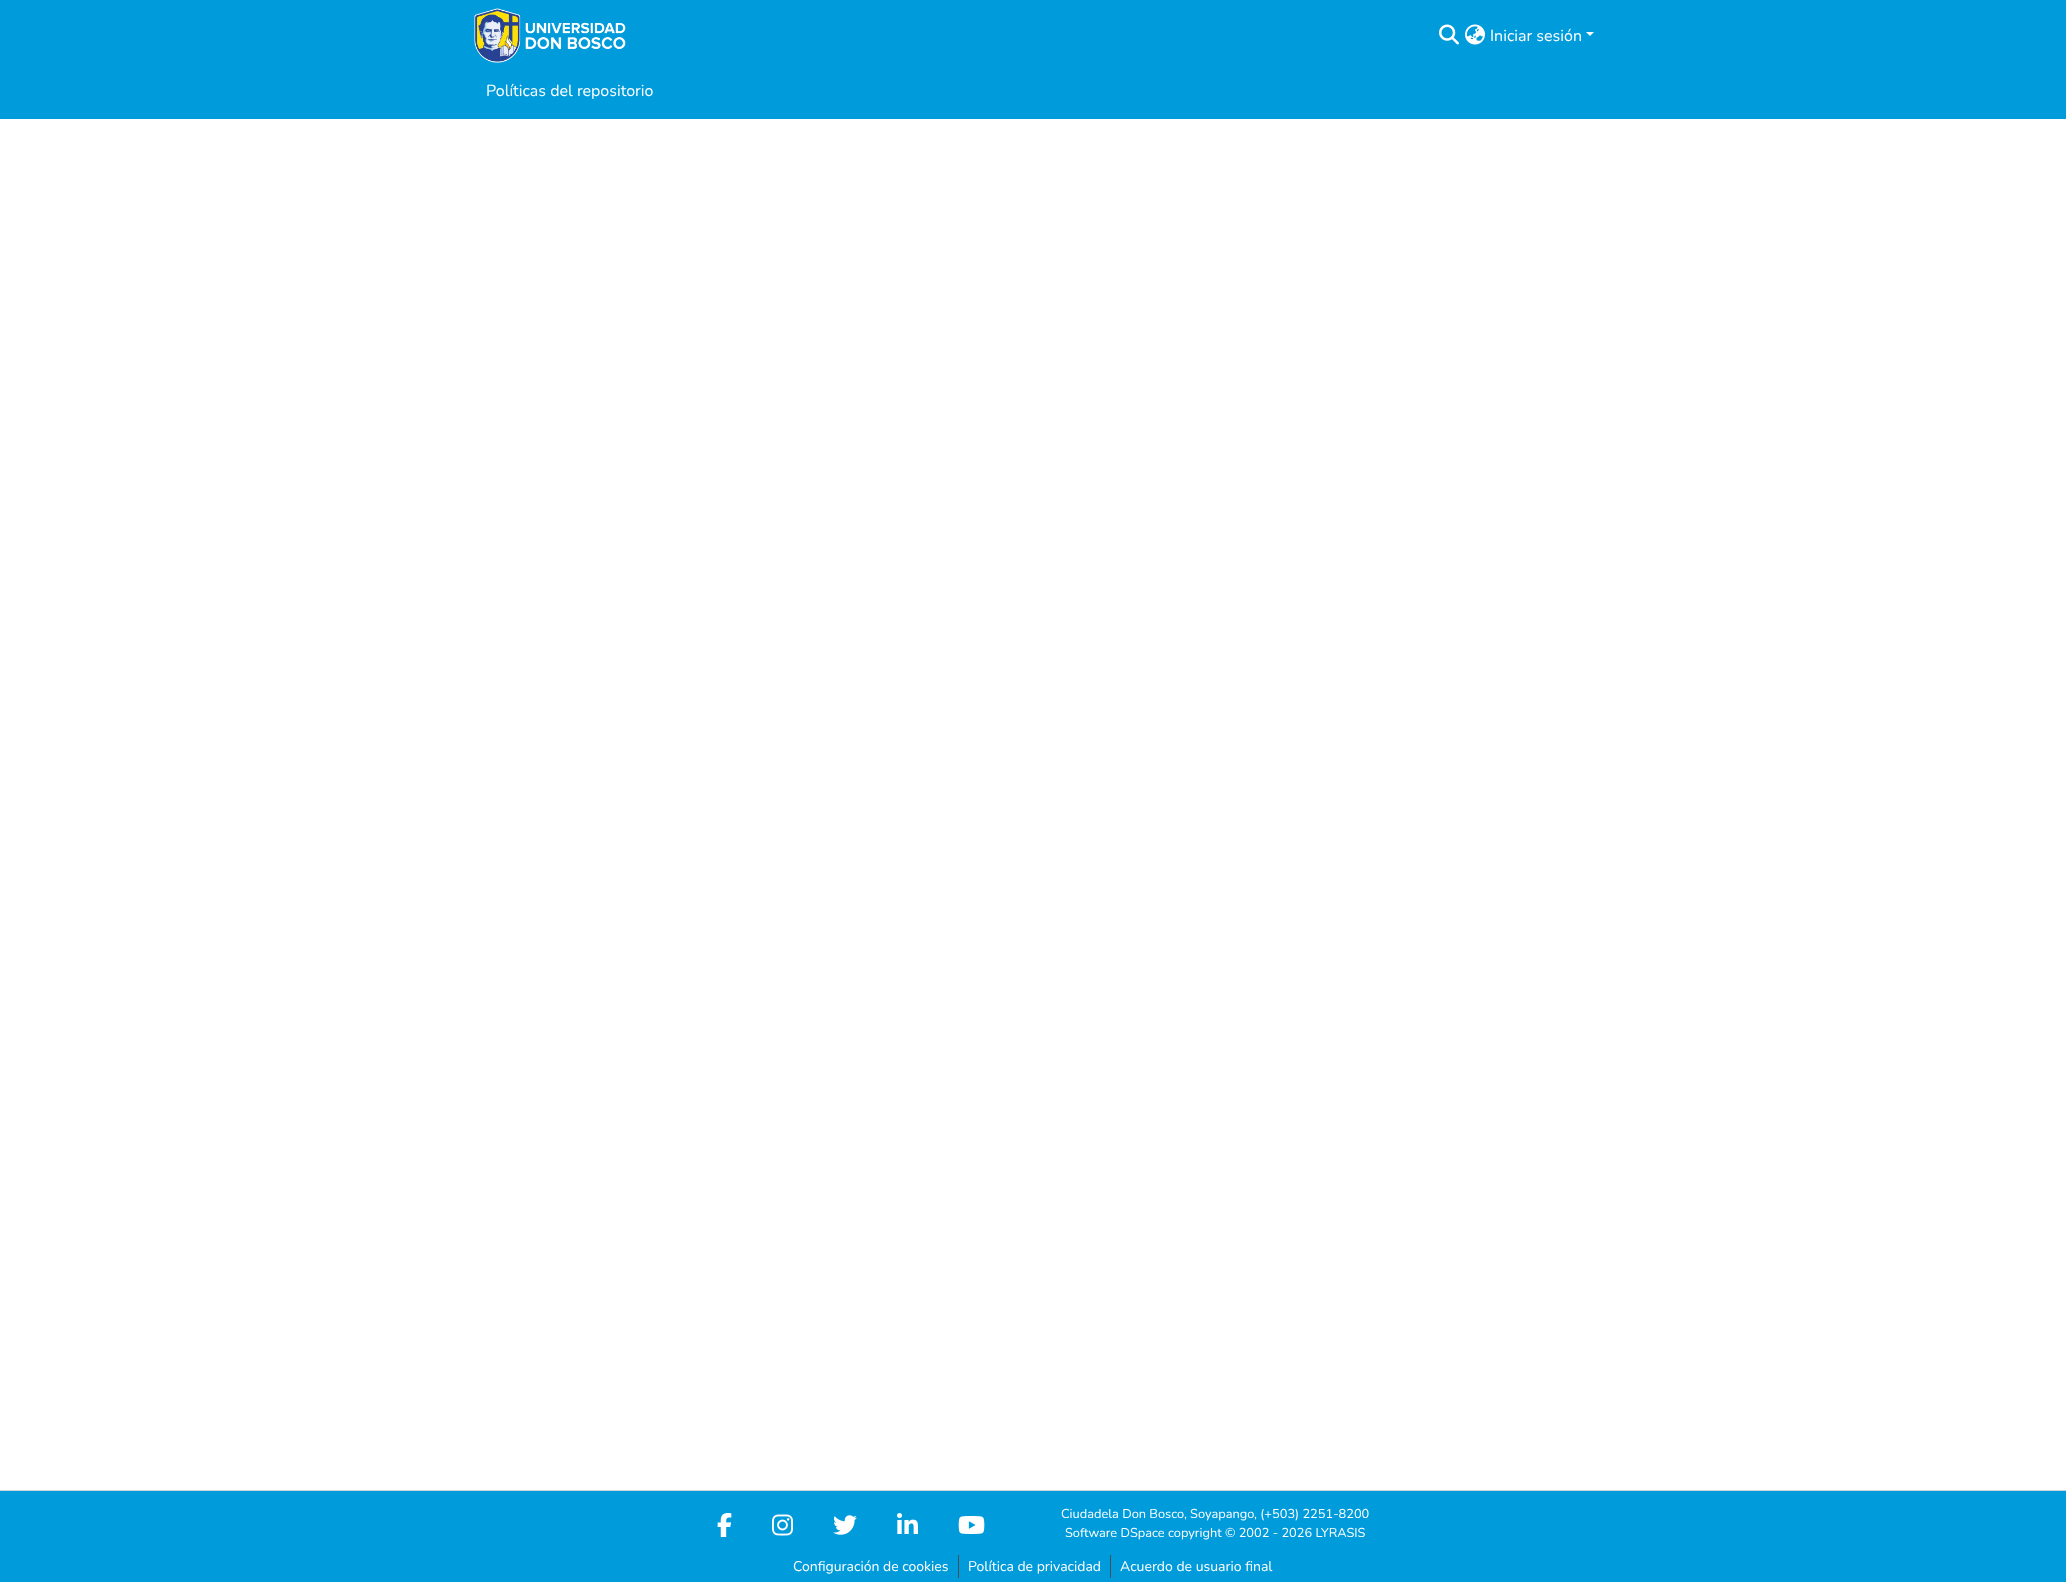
<svg xmlns="http://www.w3.org/2000/svg" width="2066" height="1582">
	<rect width="100%" height="100%" fill="#FFFFFF" />
	<rect x="0" y="0" width="2066" height="119" fill="#009BDB" />
	<image x="474" y="8" width="152" height="55" href="assets/img1.png" />
	<image x="1439" y="24" width="20" height="21" href="assets/img2.png" />
	<image x="1465" y="24" width="20" height="21" href="assets/img3.png" />
	<text x="1490" y="41" font-family="Nunito" font-size="16" fill="#FFFFFF">Iniciar sesión</text>
	<path d="M1586 32H1594L1590 36Z" fill="#FFFFFF" />
	<text x="486" y="96" font-family="Nunito" font-size="16" fill="#FFFFFF">Políticas del repositorio</text>
	<rect x="0" y="1491" width="2066" height="91" fill="#009BDB" />
	<rect x="0" y="1490" width="2066" height="1" fill="#CED4DA" />
	<image x="717" y="1513" width="15" height="24" href="assets/img4.png" />
	<image x="772" y="1514" width="21" height="22" href="assets/img5.png" />
	<image x="833" y="1515" width="24" height="20" href="assets/img6.png" />
	<image x="897" y="1513" width="21" height="21" href="assets/img7.png" />
	<image x="958" y="1516" width="27" height="18" href="assets/img8.png" />
	<g font-family="Nunito" font-size="12.8" fill="#FFFFFF">
		<text x="1061" y="1518">Ciudadela Don Bosco, Soyapango, (+503) 2251-8200</text>
		<text x="1065" y="1537">Software DSpace copyright © 2002 - 2026 LYRASIS</text>
	</g>
	<text x="793" y="1571" font-family="Nunito" font-size="14" fill="#FFFFFF">Configuración de cookies</text>
	<rect x="958" y="1555" width="1" height="23" fill="#495057" />
	<text x="968" y="1571" font-family="Nunito" font-size="14" fill="#FFFFFF">Política de privacidad</text>
	<rect x="1110" y="1555" width="1" height="23" fill="#495057" />
	<text x="1120" y="1571" font-family="Nunito" font-size="14" fill="#FFFFFF">Acuerdo de usuario final</text>
</svg>
